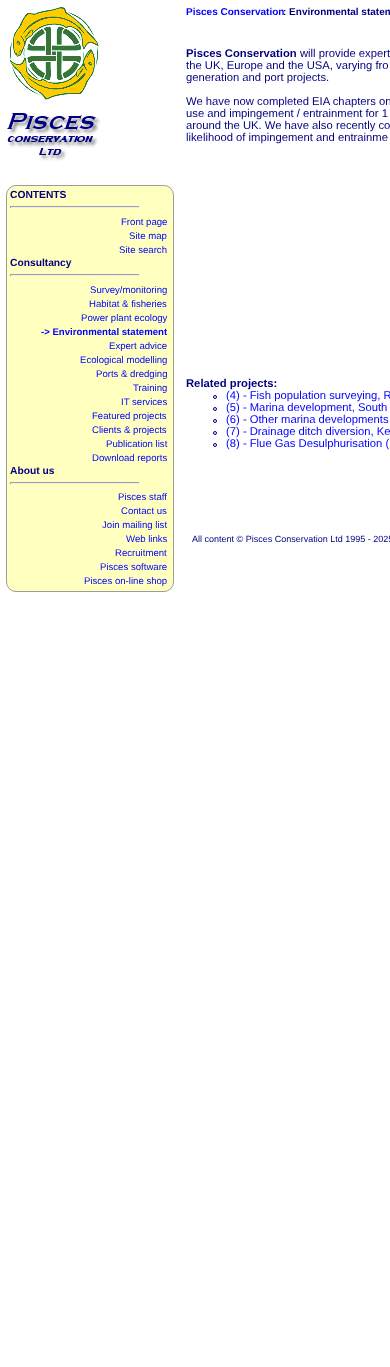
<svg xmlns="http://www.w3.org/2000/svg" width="390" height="1367">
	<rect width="100%" height="100%" fill="#FFFFFF" />
	<image x="9" y="7" width="90" height="93" href="assets/img1.png" />
	<image x="7" y="112" width="94" height="49" href="assets/img2.png" />
	<text x="186" y="15" font-family="Liberation Sans" font-size="10" font-weight="700" fill="#0000FF">Pisces Conservation</text>
	<text x="283" y="15" font-family="Liberation Sans" font-size="10" font-weight="700" fill="#000080">: Environmental statem</text>
	<text x="186" y="57" font-family="Liberation Sans" font-size="11.25" font-weight="700" fill="#000080">Pisces Conservation</text>
	<g font-family="Liberation Sans" font-size="11.25" fill="#000080">
		<text x="300" y="57">will provide expert</text>
		<text x="186" y="69">the UK, Europe and the USA, varying fro</text>
		<text x="186" y="81">generation and port projects.</text>
		<text x="186" y="105">We have now completed EIA chapters on</text>
		<text x="186" y="117">use and impingement / entrainment for 1</text>
		<text x="186" y="129">around the UK. We have also recently co</text>
		<text x="186" y="141">likelihood of impingement and entrainme</text>
	</g>
	<text x="186" y="387" font-family="Liberation Sans" font-size="11.25" font-weight="700" fill="#000080">Related projects:</text>
	<circle cx="215" cy="397" r="1.5" fill="none" stroke="#000080" />
	<text x="226" y="399" font-family="Liberation Sans" font-size="11.25" fill="#0000FF">(4) - Fish population surveying, R</text>
	<circle cx="215" cy="409" r="1.5" fill="none" stroke="#000080" />
	<text x="226" y="411" font-family="Liberation Sans" font-size="11.25" fill="#0000FF">(5) - Marina development, South</text>
	<circle cx="215" cy="421" r="1.5" fill="none" stroke="#000080" />
	<text x="226" y="423" font-family="Liberation Sans" font-size="11.25" fill="#0000FF">(6) - Other marina developments</text>
	<circle cx="215" cy="433" r="1.5" fill="none" stroke="#000080" />
	<text x="226" y="435" font-family="Liberation Sans" font-size="11.25" fill="#0000FF">(7) - Drainage ditch diversion, Ke</text>
	<circle cx="215" cy="445" r="1.5" fill="none" stroke="#000080" />
	<text x="226" y="447" font-family="Liberation Sans" font-size="11.25" fill="#0000FF">(8) - Flue Gas Desulphurisation (</text>
	<rect x="6.5" y="185.5" width="167" height="406" rx="9.5" fill="#FFFFC0" stroke="#9D9B9B" />
	<text x="10" y="198" font-family="Liberation Sans" font-size="10.25" font-weight="700" fill="#000080">CONTENTS</text>
	<rect x="10" y="206" width="130" height="1" fill="#9F9F9F" />
	<rect x="139" y="206" width="1" height="2" fill="#EEEEEE" />
	<rect x="10" y="207" width="130" height="1" fill="#EEEEEE" />
	<rect x="10" y="206" width="1" height="2" fill="#9F9F9F" />
	<g font-family="Liberation Sans" font-size="9.6" fill="#0000FF">
		<text x="121" y="225">Front page</text>
		<text x="129" y="239">Site map</text>
		<text x="119" y="253">Site search</text>
	</g>
	<text x="10" y="266" font-family="Liberation Sans" font-size="10.25" font-weight="700" fill="#000080">Consultancy</text>
	<rect x="10" y="274" width="130" height="1" fill="#9F9F9F" />
	<rect x="139" y="274" width="1" height="2" fill="#EEEEEE" />
	<rect x="10" y="275" width="130" height="1" fill="#EEEEEE" />
	<rect x="10" y="274" width="1" height="2" fill="#9F9F9F" />
	<g font-family="Liberation Sans" font-size="9.6" fill="#0000FF">
		<text x="90" y="293">Survey/monitoring</text>
		<text x="89" y="307">Habitat &amp; fisheries</text>
		<text x="81" y="321">Power plant ecology</text>
	</g>
	<text x="41" y="335" font-family="Liberation Sans" font-size="9.6" font-weight="700" fill="#0000FF">-&gt; Environmental statement</text>
	<g font-family="Liberation Sans" font-size="9.6" fill="#0000FF">
		<text x="109" y="349">Expert advice</text>
		<text x="80" y="363">Ecological modelling</text>
		<text x="96" y="377">Ports &amp; dredging</text>
		<text x="133" y="391">Training</text>
		<text x="121" y="405">IT services</text>
		<text x="92" y="419">Featured projects</text>
		<text x="92" y="433">Clients &amp; projects</text>
		<text x="106" y="447">Publication list</text>
		<text x="92" y="461">Download reports</text>
	</g>
	<text x="10" y="474" font-family="Liberation Sans" font-size="10.25" font-weight="700" fill="#000080">About us</text>
	<rect x="10" y="482" width="130" height="1" fill="#9F9F9F" />
	<rect x="139" y="482" width="1" height="2" fill="#EEEEEE" />
	<rect x="10" y="483" width="130" height="1" fill="#EEEEEE" />
	<rect x="10" y="482" width="1" height="2" fill="#9F9F9F" />
	<g font-family="Liberation Sans" font-size="9.6" fill="#0000FF">
		<text x="118" y="500">Pisces staff</text>
		<text x="121" y="514">Contact us</text>
		<text x="102" y="528">Join mailing list</text>
		<text x="126" y="542">Web links</text>
		<text x="115" y="556">Recruitment</text>
		<text x="100" y="570">Pisces software</text>
		<text x="84" y="584">Pisces on-line shop</text>
	</g>
	<text x="192" y="542" font-family="Liberation Sans" font-size="9" fill="#000080">All content © Pisces Conservation Ltd 1995 - 2025</text>
</svg>
